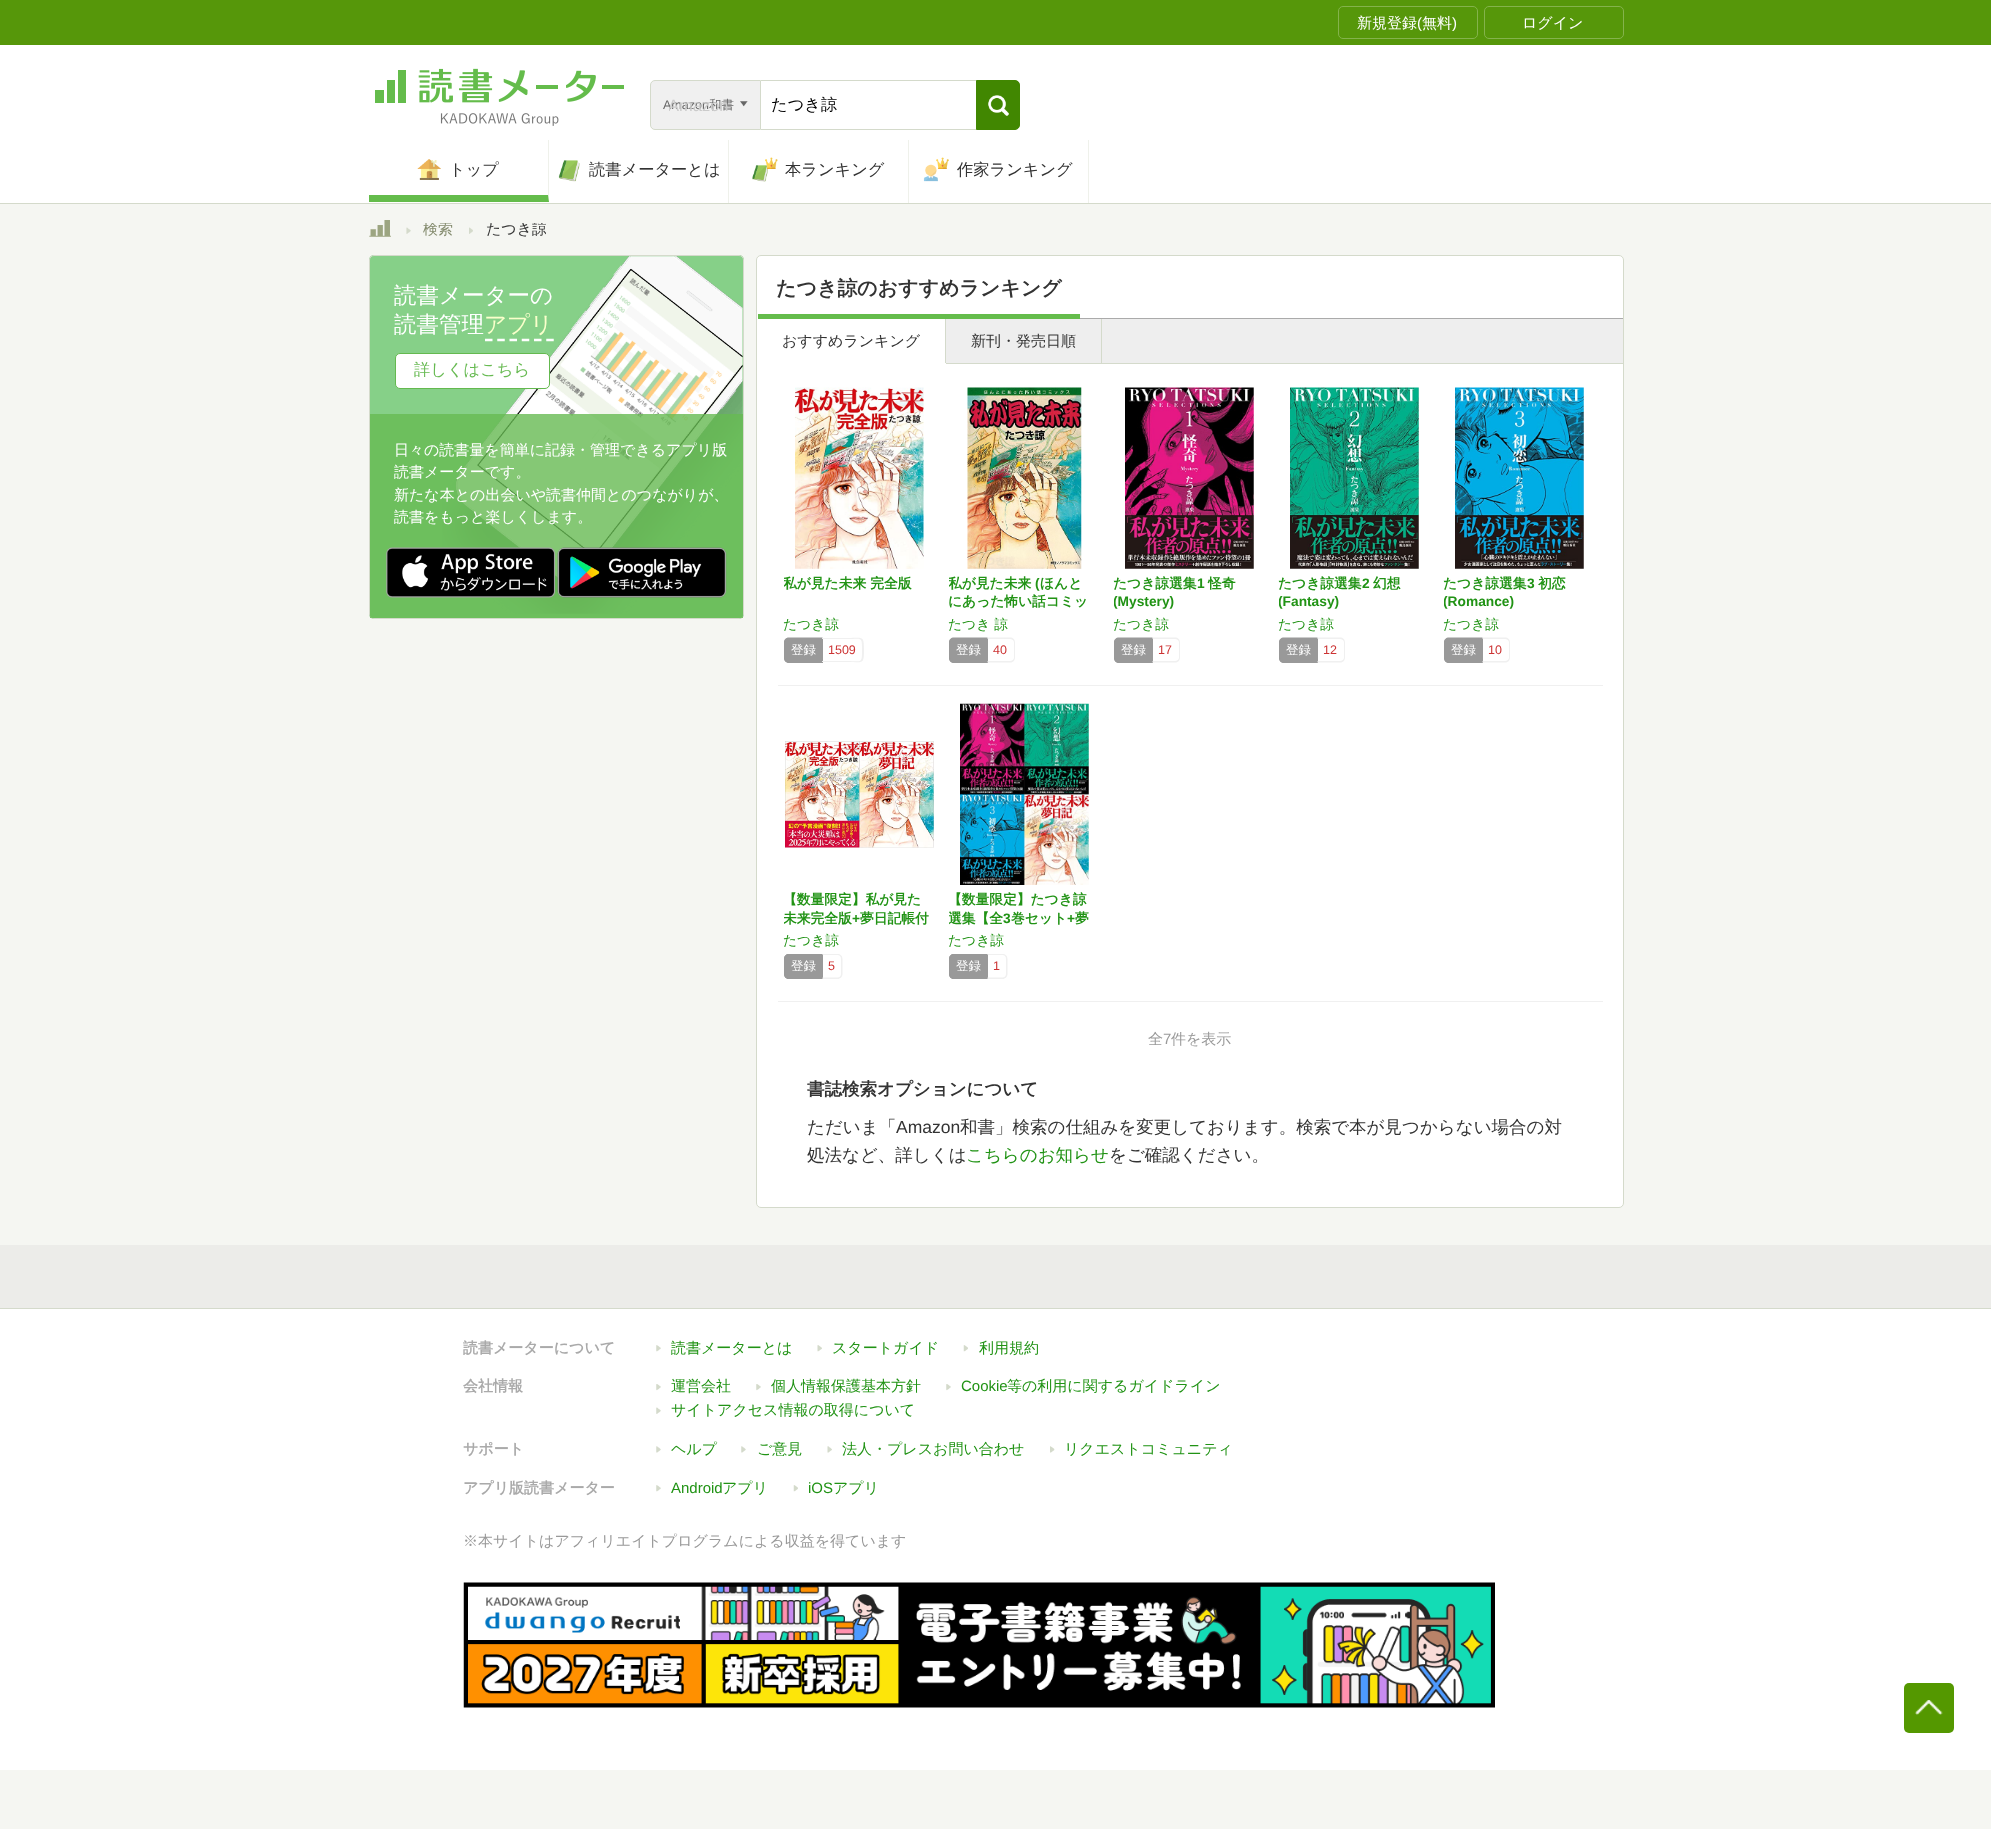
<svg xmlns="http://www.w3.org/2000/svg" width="1991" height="1829">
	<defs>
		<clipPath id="clip1"><rect x="669" y="95" width="59" height="21" /></clipPath>
		<clipPath id="clip2"><rect x="406" y="223" width="48" height="15" /></clipPath>
		<clipPath id="clip3"><rect x="469" y="223" width="77" height="15" /></clipPath>
		<clipPath id="clip4"><rect x="784" y="574" width="152" height="37" /></clipPath>
		<clipPath id="clip5"><rect x="949" y="574" width="152" height="37" /></clipPath>
		<clipPath id="clip6"><rect x="1114" y="574" width="152" height="37" /></clipPath>
		<clipPath id="clip7"><rect x="1279" y="574" width="152" height="37" /></clipPath>
		<clipPath id="clip8"><rect x="1444" y="574" width="152" height="37" /></clipPath>
		<clipPath id="clip9"><rect x="784" y="890" width="152" height="38" /></clipPath>
		<clipPath id="clip10"><rect x="949" y="890" width="152" height="38" /></clipPath>
	</defs>
	<rect width="100%" height="100%" fill="#F5F6F2" />
	<rect x="0" y="45" width="1991" height="158" fill="#FFFFFF" />
	<rect x="0" y="203" width="1991" height="1" fill="#D4DACB" />
	<rect x="0" y="0" width="1991" height="45" fill="#56970A" />
	<rect x="1338.5" y="6.5" width="139" height="32" rx="4.5" fill="none" stroke="#84B34C" />
	<text x="1357" y="28" font-family="WenQuanYi Zen Hei" font-size="15" font-weight="500" fill="#FFFFFF">新規登録</text>
	<text x="1417" y="28" font-family="Liberation Sans" font-size="15" fill="#FFFFFF">(</text>
	<text x="1422" y="28" font-family="WenQuanYi Zen Hei" font-size="15" font-weight="500" fill="#FFFFFF">無料</text>
	<text x="1452" y="28" font-family="Liberation Sans" font-size="15" fill="#FFFFFF">)</text>
	<rect x="1484.5" y="6.5" width="139" height="32" rx="4.5" fill="none" stroke="#84B34C" />
	<text x="1522" y="28" font-family="WenQuanYi Zen Hei" font-size="15" font-weight="500" fill="#FFFFFF">ログイン</text>
	<image x="375" y="68" width="249" height="58" href="assets/img1.png" />
	<path d="M655 80.5H760.5V129.5H655C652.5 129.5 650.5 127.5 650.5 125V85C650.5 82.5 652.5 80.5 655 80.5Z" fill="#F0F0F0" stroke="#D4DACB" />
	<text x="709" y="109" font-family="WenQuanYi Zen Hei" font-size="12.5" font-weight="500" fill="#666666">和書</text>
	<text x="663" y="109" font-family="Liberation Sans" font-size="12.5" fill="#666666">Amazon</text>
	<g clip-path="url(#clip1)">
		<text x="668" y="111" font-family="Liberation Sans" font-size="16.5" fill="#CBCBCB">Amazon</text>
	</g>
	<image x="740" y="101" width="8" height="6" href="assets/img2.png" />
	<rect x="761" y="80" width="215" height="1" fill="#D4DACB" />
	<rect x="761" y="129" width="215" height="1" fill="#D4DACB" />
	<text x="771" y="110" font-family="WenQuanYi Zen Hei" font-size="16.25" font-weight="500" fill="#000000">たつき諒</text>
	<path d="M976.5 80.5H1015C1017.5 80.5 1019.5 82.5 1019.5 85V125C1019.5 127.5 1017.5 129.5 1015 129.5H976.5Z" fill="#418701" stroke="#418701" />
	<image x="988" y="95" width="21" height="21" href="assets/img3.png" />
	<path d="M549 140V202L548 195V140Z" fill="#EFF1EB" />
	<path d="M549 202H369V195H548Z" fill="#64BC4B" />
	<image x="417" y="159" width="24" height="21" href="assets/img4.png" />
	<text x="449" y="175" font-family="WenQuanYi Zen Hei" font-size="16.25" font-weight="500" fill="#333333">トップ</text>
	<rect x="728" y="140" width="1" height="63" fill="#EFF1EB" />
	<image x="558" y="160" width="22" height="22" href="assets/img5.png" />
	<text x="589" y="175" font-family="WenQuanYi Zen Hei" font-size="16.25" font-weight="500" fill="#333333">読書メーターとは</text>
	<rect x="908" y="140" width="1" height="63" fill="#EFF1EB" />
	<image x="752" y="157" width="26" height="25" href="assets/img6.png" />
	<text x="785" y="175" font-family="WenQuanYi Zen Hei" font-size="16.25" font-weight="500" fill="#333333">本ランキング</text>
	<rect x="1088" y="140" width="1" height="63" fill="#EFF1EB" />
	<image x="923" y="157" width="26" height="25" href="assets/img7.png" />
	<text x="957" y="175" font-family="WenQuanYi Zen Hei" font-size="16.25" font-weight="500" fill="#333333">作家ランキング</text>
	<image x="369" y="220" width="22" height="17" href="assets/img8.png" />
	<image x="406" y="227" width="5" height="7" href="assets/img9.png" />
	<g clip-path="url(#clip2)">
		<text x="423" y="234" font-family="WenQuanYi Zen Hei" font-size="15" font-weight="500" fill="#848B6E">検索</text>
	</g>
	<image x="469" y="227" width="4" height="7" href="assets/img10.png" />
	<g clip-path="url(#clip3)">
		<text x="486" y="234" font-family="WenQuanYi Zen Hei" font-size="15" font-weight="500" fill="#333333">たつき諒</text>
	</g>
	<rect x="369" y="255" width="375" height="364" rx="5" fill="#86D088" />
	<image x="442" y="256" width="301" height="358" href="assets/img11.png" />
	<rect x="369.5" y="255.5" width="374" height="363" rx="4.5" fill="none" stroke="#D4DACB" />
	<g font-family="WenQuanYi Zen Hei" font-size="22.5" font-weight="500" fill="#FFFFFF">
		<text x="394" y="303">読書メーターの</text>
		<text x="394" y="332">読書管理</text>
	</g>
	<text x="484" y="332" font-family="WenQuanYi Zen Hei" font-size="22.5" font-weight="500" fill="#FAFFCB">アプリ</text>
	<path d="M485 340H554" fill="none" stroke="#FFFFFF" stroke-width="2.5" stroke-dasharray="7.5 4.75" />
	<rect x="395.5" y="353.5" width="154" height="35" rx="4.5" fill="#FFFFFF" stroke="#64B94F" />
	<text x="414" y="375" font-family="WenQuanYi Zen Hei" font-size="16.25" font-weight="500" fill="#67BA52">詳しくはこちら</text>
	<rect x="370" y="414" width="373" height="204" fill="#67BA52" fill-opacity="0.8" />
	<g font-family="WenQuanYi Zen Hei" font-size="15" font-weight="500" fill="#FFFFFF">
		<text x="394" y="455">日々の読書量を簡単に記録・管理できるアプリ版</text>
		<text x="394" y="477">読書メーターです。</text>
		<text x="394" y="500">新たな本との出会いや読書仲間とのつながりが、</text>
		<text x="394" y="522">読書をもっと楽しくします。</text>
	</g>
	<image x="386" y="547" width="169" height="51" href="assets/img12.png" />
	<image x="557" y="547" width="170" height="51" href="assets/img13.png" />
	<rect x="756.5" y="255.5" width="867" height="952" rx="4.5" fill="#FFFFFF" stroke="#D4DACB" />
	<rect x="1080" y="318" width="543" height="1" fill="#AAAAAA" />
	<rect x="758" y="314" width="322" height="5" fill="#64BC4B" />
	<g font-family="WenQuanYi Zen Hei" font-size="20" font-weight="700" fill="#333333">
		<text x="776" y="295">たつき諒</text>
		<text x="857" y="295">のおすすめランキング</text>
	</g>
	<rect x="946" y="319" width="677" height="44" fill="#EEEEEE" />
	<rect x="945" y="319" width="1" height="45" fill="#D4DACB" />
	<text x="782" y="346" font-family="WenQuanYi Zen Hei" font-size="15" font-weight="500" fill="#333333">おすすめランキング</text>
	<rect x="945" y="363" width="1" height="1" fill="#FFFFFF" />
	<rect x="1101" y="319" width="1" height="45" fill="#D4DACB" />
	<text x="971" y="346" font-family="WenQuanYi Zen Hei" font-size="15" font-weight="500" fill="#333333">新刊・発売日順</text>
	<rect x="946" y="363" width="677" height="1" fill="#D4DACB" />
	<rect x="778" y="685" width="825" height="1" fill="#F0F0F0" />
	<image x="795" y="387" width="129" height="182" href="assets/img14.png" />
	<g clip-path="url(#clip4)">
		<text x="783" y="588" font-family="WenQuanYi Zen Hei" font-size="13.75" font-weight="700" fill="#219315">私が見た未来 完全版</text>
	</g>
	<text x="783" y="629" font-family="WenQuanYi Zen Hei" font-size="13.75" font-weight="500" fill="#219315">たつき諒</text>
	<path d="M789 638H823V663H789C786 663 784 661 784 658V643C784 640 786 638 789 638Z" fill="#999999" />
	<path d="M789 637.5H822.5V662.5H789C786 662.5 784 660.5 784 657.5V642.5C784 639.5 786 637.5 789 637.5ZM789 639H822.5V661H789C786.5 661 785 659.5 785 657.5V642.5C785 640.5 786.5 639 789 639Z" fill="#999999" fill-rule="evenodd" />
	<text x="791" y="654" font-family="WenQuanYi Zen Hei" font-size="12.5" font-weight="500" fill="#FFFFFF">登録</text>
	<path d="M822 638H847C863 638 864 635 864 650C864 665 863 662 847 662H822ZM822 639H847C862 639 862 636 862 650C862 664 862 661 847 661H822Z" fill="#F0F0F0" fill-rule="evenodd" />
	<text x="828" y="654" font-family="Liberation Sans" font-size="12.5" fill="#CC3333">1509</text>
	<image x="967" y="387" width="115" height="182" href="assets/img15.png" />
	<g clip-path="url(#clip5)">
		<text x="948" y="588" font-family="WenQuanYi Zen Hei" font-size="13.75" font-weight="700" fill="#219315">私が見た未来</text>
	</g>
	<text x="1035" y="588" font-family="Liberation Sans" font-size="13.75" font-weight="700" fill="#219315">(</text>
	<g font-family="WenQuanYi Zen Hei" font-size="13.75" font-weight="700" fill="#219315">
		<text x="1040" y="588">ほんと</text>
		<text x="948" y="606">にあった怖い話コミッ</text>
	</g>
	<text x="948" y="629" font-family="WenQuanYi Zen Hei" font-size="13.75" font-weight="500" fill="#219315">たつき 諒</text>
	<path d="M954 638H988V663H954C951 663 949 661 949 658V643C949 640 951 638 954 638Z" fill="#999999" />
	<path d="M954 637.5H987.5V662.5H954C951 662.5 949 660.5 949 657.5V642.5C949 639.5 951 637.5 954 637.5ZM954 639H987.5V661H954C951.5 661 950 659.5 950 657.5V642.5C950 640.5 951.5 639 954 639Z" fill="#999999" fill-rule="evenodd" />
	<text x="956" y="654" font-family="WenQuanYi Zen Hei" font-size="12.5" font-weight="500" fill="#FFFFFF">登録</text>
	<path d="M987.5 637.5H1010C1013 637.5 1015 639.5 1015 642.5V657.5C1015 660.5 1013 662.5 1010 662.5H987.5ZM987.5 639H1010C1012 639 1014 640.5 1014 642.5V657.5C1014 659.5 1012 661 1010 661H987.5Z" fill="#F0F0F0" fill-rule="evenodd" />
	<text x="993" y="654" font-family="Liberation Sans" font-size="12.5" fill="#CC3333">40</text>
	<image x="1125" y="387" width="129" height="182" href="assets/img16.png" />
	<text x="1113" y="588" font-family="WenQuanYi Zen Hei" font-size="13.75" font-weight="700" fill="#219315">たつき諒選集</text>
	<text x="1197" y="588" font-family="Liberation Sans" font-size="13.75" font-weight="700" fill="#219315">1</text>
	<text x="1208" y="588" font-family="WenQuanYi Zen Hei" font-size="13.75" font-weight="700" fill="#219315">怪奇</text>
	<g clip-path="url(#clip6)">
		<text x="1113" y="606" font-family="Liberation Sans" font-size="13.75" font-weight="700" fill="#219315">(Mystery)</text>
	</g>
	<text x="1113" y="629" font-family="WenQuanYi Zen Hei" font-size="13.75" font-weight="500" fill="#219315">たつき諒</text>
	<path d="M1119 638H1153V663H1119C1116 663 1114 661 1114 658V643C1114 640 1116 638 1119 638Z" fill="#999999" />
	<path d="M1119 637.5H1152.5V662.5H1119C1116 662.5 1114 660.5 1114 657.5V642.5C1114 639.5 1116 637.5 1119 637.5ZM1119 639H1152.5V661H1119C1116.5 661 1115 659.5 1115 657.5V642.5C1115 640.5 1116.5 639 1119 639Z" fill="#999999" fill-rule="evenodd" />
	<text x="1121" y="654" font-family="WenQuanYi Zen Hei" font-size="12.5" font-weight="500" fill="#FFFFFF">登録</text>
	<path d="M1152.5 637.5H1175C1178 637.5 1180 639.5 1180 642.5V657.5C1180 660.5 1178 662.5 1175 662.5H1152.5ZM1152.5 639H1175C1177 639 1179 640.5 1179 642.5V657.5C1179 659.5 1177 661 1175 661H1152.5Z" fill="#F0F0F0" fill-rule="evenodd" />
	<text x="1158" y="654" font-family="Liberation Sans" font-size="12.5" fill="#CC3333">17</text>
	<image x="1290" y="387" width="129" height="182" href="assets/img17.png" />
	<text x="1278" y="588" font-family="WenQuanYi Zen Hei" font-size="13.75" font-weight="700" fill="#219315">たつき諒選集</text>
	<text x="1362" y="588" font-family="Liberation Sans" font-size="13.75" font-weight="700" fill="#219315">2</text>
	<text x="1373" y="588" font-family="WenQuanYi Zen Hei" font-size="13.75" font-weight="700" fill="#219315">幻想</text>
	<g clip-path="url(#clip7)">
		<text x="1278" y="606" font-family="Liberation Sans" font-size="13.75" font-weight="700" fill="#219315">(Fantasy)</text>
	</g>
	<text x="1278" y="629" font-family="WenQuanYi Zen Hei" font-size="13.75" font-weight="500" fill="#219315">たつき諒</text>
	<path d="M1284 638H1318V663H1284C1281 663 1279 661 1279 658V643C1279 640 1281 638 1284 638Z" fill="#999999" />
	<path d="M1284 637.5H1317.5V662.5H1284C1281 662.5 1279 660.5 1279 657.5V642.5C1279 639.5 1281 637.5 1284 637.5ZM1284 639H1317.5V661H1284C1281.5 661 1280 659.5 1280 657.5V642.5C1280 640.5 1281.5 639 1284 639Z" fill="#999999" fill-rule="evenodd" />
	<text x="1286" y="654" font-family="WenQuanYi Zen Hei" font-size="12.5" font-weight="500" fill="#FFFFFF">登録</text>
	<path d="M1317.5 637.5H1340C1343 637.5 1345 639.5 1345 642.5V657.5C1345 660.5 1343 662.5 1340 662.5H1317.5ZM1317.5 639H1340C1342 639 1344 640.5 1344 642.5V657.5C1344 659.5 1342 661 1340 661H1317.5Z" fill="#F0F0F0" fill-rule="evenodd" />
	<text x="1323" y="654" font-family="Liberation Sans" font-size="12.5" fill="#CC3333">12</text>
	<image x="1455" y="387" width="129" height="182" href="assets/img18.png" />
	<text x="1443" y="588" font-family="WenQuanYi Zen Hei" font-size="13.75" font-weight="700" fill="#219315">たつき諒選集</text>
	<text x="1527" y="588" font-family="Liberation Sans" font-size="13.75" font-weight="700" fill="#219315">3</text>
	<text x="1538" y="588" font-family="WenQuanYi Zen Hei" font-size="13.75" font-weight="700" fill="#219315">初恋</text>
	<g clip-path="url(#clip8)">
		<text x="1443" y="606" font-family="Liberation Sans" font-size="13.75" font-weight="700" fill="#219315">(Romance)</text>
	</g>
	<text x="1443" y="629" font-family="WenQuanYi Zen Hei" font-size="13.75" font-weight="500" fill="#219315">たつき諒</text>
	<path d="M1449 638H1483V663H1449C1446 663 1444 661 1444 658V643C1444 640 1446 638 1449 638Z" fill="#999999" />
	<path d="M1449 637.5H1482.5V662.5H1449C1446 662.5 1444 660.5 1444 657.5V642.5C1444 639.5 1446 637.5 1449 637.5ZM1449 639H1482.5V661H1449C1446.5 661 1445 659.5 1445 657.5V642.5C1445 640.5 1446.5 639 1449 639Z" fill="#999999" fill-rule="evenodd" />
	<text x="1451" y="654" font-family="WenQuanYi Zen Hei" font-size="12.5" font-weight="500" fill="#FFFFFF">登録</text>
	<path d="M1482.5 637.5H1505C1508 637.5 1510 639.5 1510 642.5V657.5C1510 660.5 1508 662.5 1505 662.5H1482.5ZM1482.5 639H1505C1507 639 1509 640.5 1509 642.5V657.5C1509 659.5 1507 661 1505 661H1482.5Z" fill="#F0F0F0" fill-rule="evenodd" />
	<text x="1488" y="654" font-family="Liberation Sans" font-size="12.5" fill="#CC3333">10</text>
	<rect x="778" y="1001" width="825" height="1" fill="#F0F0F0" />
	<image x="785" y="741" width="149" height="107" href="assets/img19.png" />
	<text x="783" y="904" font-family="WenQuanYi Zen Hei" font-size="13.75" font-weight="700" fill="#219315">【数量限定】私が見た</text>
	<g clip-path="url(#clip9)">
		<text x="783" y="923" font-family="WenQuanYi Zen Hei" font-size="13.75" font-weight="700" fill="#219315">未来完全版</text>
	</g>
	<text x="852" y="923" font-family="Liberation Sans" font-size="13.75" font-weight="700" fill="#219315">+</text>
	<text x="860" y="923" font-family="WenQuanYi Zen Hei" font-size="13.75" font-weight="700" fill="#219315">夢日記帳付</text>
	<text x="783" y="945" font-family="WenQuanYi Zen Hei" font-size="13.75" font-weight="500" fill="#219315">たつき諒</text>
	<path d="M789 954H823V979H789C786 979 784 977 784 974V959C784 956 786 954 789 954Z" fill="#999999" />
	<path d="M789 954H822.5V979H789C786 979 784 976.5 784 974V959C784 956 786 954 789 954ZM789 955H822.5V977.5H789C786.5 977.5 785 976 785 974V959C785 956.5 786.5 955 789 955Z" fill="#999999" fill-rule="evenodd" />
	<text x="791" y="970" font-family="WenQuanYi Zen Hei" font-size="12.5" font-weight="500" fill="#FFFFFF">登録</text>
	<path d="M822.5 954H837.5C840.5 954 842.5 956 842.5 959V974C842.5 976.5 840.5 979 837.5 979H822.5ZM822.5 955H837.5C839.5 955 841 956.5 841 959V974C841 976 839.5 977.5 837.5 977.5H822.5Z" fill="#F0F0F0" fill-rule="evenodd" />
	<text x="828" y="970" font-family="Liberation Sans" font-size="12.5" fill="#CC3333">5</text>
	<image x="960" y="703" width="129" height="182" href="assets/img20.png" />
	<text x="948" y="904" font-family="WenQuanYi Zen Hei" font-size="13.75" font-weight="700" fill="#219315">【数量限定】たつき諒</text>
	<g clip-path="url(#clip10)">
		<text x="948" y="923" font-family="WenQuanYi Zen Hei" font-size="13.75" font-weight="700" fill="#219315">選集【全</text>
	</g>
	<text x="1003" y="923" font-family="Liberation Sans" font-size="13.75" font-weight="700" fill="#219315">3</text>
	<text x="1011" y="923" font-family="WenQuanYi Zen Hei" font-size="13.75" font-weight="700" fill="#219315">巻セット</text>
	<text x="1067" y="923" font-family="Liberation Sans" font-size="13.75" font-weight="700" fill="#219315">+</text>
	<text x="1075" y="923" font-family="WenQuanYi Zen Hei" font-size="13.75" font-weight="700" fill="#219315">夢</text>
	<text x="948" y="945" font-family="WenQuanYi Zen Hei" font-size="13.75" font-weight="500" fill="#219315">たつき諒</text>
	<path d="M954 954H988V979H954C951 979 949 977 949 974V959C949 956 951 954 954 954Z" fill="#999999" />
	<path d="M954 954H987.5V979H954C951 979 949 976.5 949 974V959C949 956 951 954 954 954ZM954 955H987.5V977.5H954C951.5 977.5 950 976 950 974V959C950 956.5 951.5 955 954 955Z" fill="#999999" fill-rule="evenodd" />
	<text x="956" y="970" font-family="WenQuanYi Zen Hei" font-size="12.5" font-weight="500" fill="#FFFFFF">登録</text>
	<path d="M987.5 954H1002.5C1005.5 954 1007.5 956 1007.5 959V974C1007.5 976.5 1005.5 979 1002.5 979H987.5ZM987.5 955H1002.5C1004.5 955 1006 956.5 1006 959V974C1006 976 1004.5 977.5 1002.5 977.5H987.5Z" fill="#F0F0F0" fill-rule="evenodd" />
	<text x="993" y="970" font-family="Liberation Sans" font-size="12.5" fill="#CC3333">1</text>
	<text x="1148" y="1044" font-family="WenQuanYi Zen Hei" font-size="15" font-weight="500" fill="#999999">全</text>
	<text x="1163" y="1044" font-family="Liberation Sans" font-size="15" fill="#999999">7</text>
	<text x="1171" y="1044" font-family="WenQuanYi Zen Hei" font-size="15" font-weight="500" fill="#999999">件を表示</text>
	<text x="807" y="1095" font-family="WenQuanYi Zen Hei" font-size="17.5" font-weight="700" fill="#333333">書誌検索オプションについて</text>
	<text x="807" y="1133" font-family="WenQuanYi Zen Hei" font-size="17.5" font-weight="500" fill="#333333">ただいま「</text>
	<text x="896" y="1133" font-family="Liberation Sans" font-size="17.5" fill="#333333">Amazon</text>
	<g font-family="WenQuanYi Zen Hei" font-size="17.5" font-weight="500" fill="#333333">
		<text x="960" y="1133">和書」検索の仕組みを変更しております。検索で本が見つからない場合の対</text>
		<text x="807" y="1161">処法など、詳しくは</text>
	</g>
	<text x="966" y="1161" font-family="WenQuanYi Zen Hei" font-size="17.5" font-weight="500" fill="#219315">こちらのお知らせ</text>
	<text x="1109" y="1161" font-family="WenQuanYi Zen Hei" font-size="17.5" font-weight="500" fill="#333333">をご確認ください。</text>
	<rect x="0" y="1245" width="1991" height="63" fill="#ECECE9" />
	<rect x="0" y="1309" width="1991" height="461" fill="#FFFFFF" />
	<rect x="0" y="1308" width="1991" height="1" fill="#D4DACB" />
	<text x="463" y="1353" font-family="WenQuanYi Zen Hei" font-size="15" font-weight="700" fill="#AAAAAA">読書メーターについて</text>
	<image x="656" y="1345" width="5" height="7" href="assets/img21.png" />
	<text x="671" y="1353" font-family="WenQuanYi Zen Hei" font-size="15" font-weight="500" fill="#219315">読書メーターとは</text>
	<image x="817" y="1345" width="5" height="7" href="assets/img22.png" />
	<text x="832" y="1353" font-family="WenQuanYi Zen Hei" font-size="15" font-weight="500" fill="#219315">スタートガイド</text>
	<image x="963" y="1345" width="5" height="7" href="assets/img23.png" />
	<text x="979" y="1353" font-family="WenQuanYi Zen Hei" font-size="15" font-weight="500" fill="#219315">利用規約</text>
	<text x="463" y="1391" font-family="WenQuanYi Zen Hei" font-size="15" font-weight="700" fill="#AAAAAA">会社情報</text>
	<image x="656" y="1384" width="5" height="7" href="assets/img24.png" />
	<text x="671" y="1391" font-family="WenQuanYi Zen Hei" font-size="15" font-weight="500" fill="#219315">運営会社</text>
	<image x="756" y="1384" width="5" height="7" href="assets/img24.png" />
	<text x="771" y="1391" font-family="WenQuanYi Zen Hei" font-size="15" font-weight="500" fill="#219315">個人情報保護基本方針</text>
	<image x="946" y="1384" width="5" height="7" href="assets/img24.png" />
	<text x="961" y="1391" font-family="Liberation Sans" font-size="15" fill="#219315">Cookie</text>
	<text x="1007" y="1391" font-family="WenQuanYi Zen Hei" font-size="15" font-weight="500" fill="#219315">等の利用に関するガイドライン</text>
	<image x="656" y="1407" width="5" height="7" href="assets/img25.png" />
	<text x="671" y="1415" font-family="WenQuanYi Zen Hei" font-size="15" font-weight="500" fill="#219315">サイトアクセス情報の取得について</text>
	<text x="463" y="1454" font-family="WenQuanYi Zen Hei" font-size="15" font-weight="700" fill="#AAAAAA">サポート</text>
	<image x="656" y="1446" width="5" height="7" href="assets/img26.png" />
	<text x="671" y="1454" font-family="WenQuanYi Zen Hei" font-size="15" font-weight="500" fill="#219315">ヘルプ</text>
	<image x="741" y="1446" width="5" height="7" href="assets/img26.png" />
	<text x="757" y="1454" font-family="WenQuanYi Zen Hei" font-size="15" font-weight="500" fill="#219315">ご意見</text>
	<image x="827" y="1446" width="5" height="7" href="assets/img27.png" />
	<text x="842" y="1454" font-family="WenQuanYi Zen Hei" font-size="15" font-weight="500" fill="#219315">法人・プレスお問い合わせ</text>
	<image x="1050" y="1446" width="5" height="7" href="assets/img28.png" />
	<text x="1064" y="1454" font-family="WenQuanYi Zen Hei" font-size="15" font-weight="500" fill="#219315">リクエストコミュニティ</text>
	<text x="463" y="1493" font-family="WenQuanYi Zen Hei" font-size="15" font-weight="700" fill="#AAAAAA">アプリ版読書メーター</text>
	<image x="656" y="1485" width="5" height="7" href="assets/img21.png" />
	<text x="671" y="1493" font-family="Liberation Sans" font-size="15" fill="#219315">Android</text>
	<text x="722" y="1493" font-family="WenQuanYi Zen Hei" font-size="15" font-weight="500" fill="#219315">アプリ</text>
	<image x="793" y="1485" width="5" height="7" href="assets/img29.png" />
	<text x="808" y="1493" font-family="Liberation Sans" font-size="15" fill="#219315">iOS</text>
	<text x="833" y="1493" font-family="WenQuanYi Zen Hei" font-size="15" font-weight="500" fill="#219315">アプリ</text>
	<text x="463" y="1546" font-family="WenQuanYi Zen Hei" font-size="15" font-weight="500" fill="#999999">※本サイトはアフィリエイトプログラムによる収益を得ています</text>
	<image x="463" y="1582" width="1032" height="126" href="assets/img30.png" />
	<rect x="1904" y="1683" width="50" height="50" rx="5" fill="#549800" />
	<image x="1915" y="1700" width="28" height="15" href="assets/img31.png" />
</svg>
